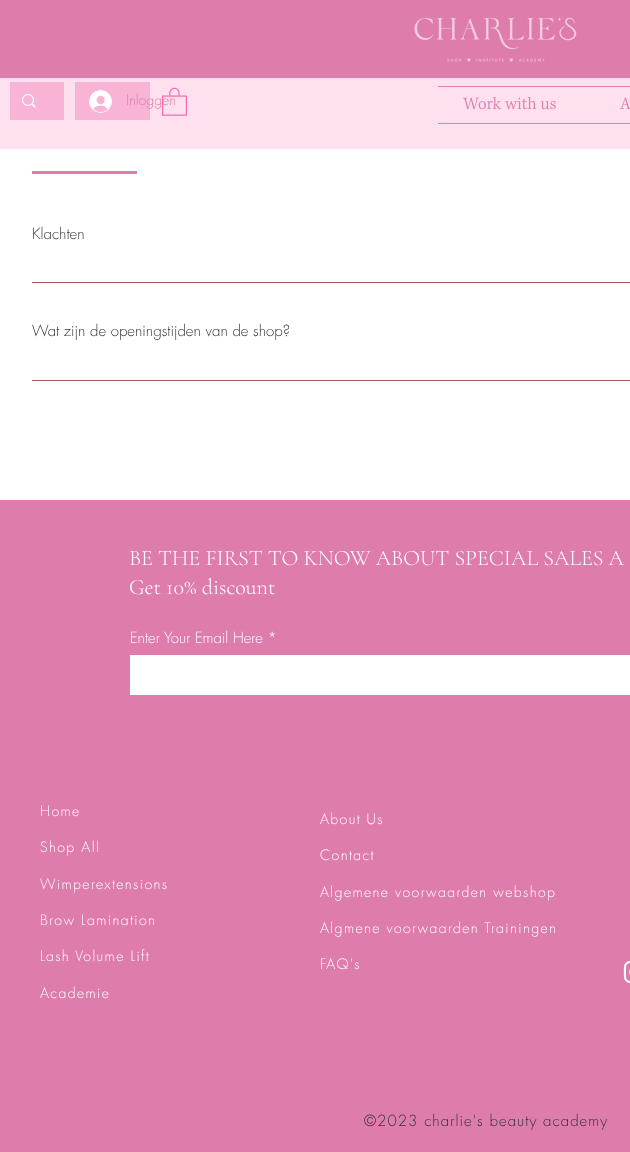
<svg xmlns="http://www.w3.org/2000/svg" width="630" height="1152">
	<rect width="100%" height="100%" fill="#FFFFFF" />
	<rect x="0" y="0" width="630" height="78" fill="#DE7CAC" />
	<image x="414" y="17" width="163" height="45" href="assets/img1.png" />
	<rect x="0" y="78" width="630" height="71" fill="#FFE0EF" />
	<rect x="10" y="82" width="54" height="38" fill="#F8B3D5" />
	<image x="22" y="94" width="14" height="14" href="assets/img2.png" />
	<rect x="75" y="82" width="75" height="38" fill="#F8B3D5" />
	<text x="126" y="105" font-family="futura" font-size="14" font-weight="300" fill="#DE7CAC">Inloggen</text>
	<image x="162" y="87" width="25" height="29" href="assets/img3.png" />
	<image x="89" y="90" width="23" height="23" href="assets/img4.png" />
	<rect x="438" y="86" width="192" height="1" fill="#DE7CAC" />
	<rect x="438" y="123" width="192" height="1" fill="#DE7CAC" />
	<image x="463" y="97" width="93" height="13" href="assets/img5.png" />
	<image x="619" y="97" width="11" height="13" href="assets/img6.png" />
	<rect x="32" y="171" width="105" height="3" fill="#DE7CAC" />
	<text x="32" y="239" font-family="futura" font-size="15" font-weight="300" fill="#31353D">Klachten</text>
	<rect x="32" y="282" width="598" height="1" fill="#A06054" />
	<text x="32" y="336" font-family="futura" font-size="15" font-weight="300" fill="#31353D">Wat zijn de openingstijden van de shop?</text>
	<rect x="32" y="380" width="598" height="1" fill="#A06054" />
	<rect x="0" y="500" width="630" height="652" fill="#DE7CAC" />
	<g font-family="Cormorant Garamond" font-size="22" font-weight="300" fill="#FFFFFF">
		<text x="129" y="565">BE THE FIRST TO KNOW ABOUT SPECIAL SALES A</text>
		<text x="129" y="594">Get 10% discount</text>
	</g>
	<text x="130" y="643" font-family="futura" font-size="15" font-weight="300" fill="#FFFFFF">Enter Your Email Here *</text>
	<rect x="130" y="655" width="500" height="40" fill="#FFFFFF" />
	<g font-family="futura" font-size="14" font-weight="300" letter-spacing="1.4" fill="#FFFFFF">
		<text x="40" y="816">Home</text>
		<text x="40" y="852">Shop All</text>
		<text x="40" y="889">Wimperextensions</text>
		<text x="40" y="925">Brow Lamination</text>
		<text x="40" y="961">Lash Volume Lift</text>
		<text x="40" y="998">Academie</text>
		<text x="320" y="824">About Us</text>
		<text x="320" y="860">Contact</text>
		<text x="320" y="897">Algemene voorwaarden webshop</text>
		<text x="320" y="933">Algmene voorwaarden Trainingen</text>
		<text x="320" y="969">FAQ's</text>
	</g>
	<image x="623" y="960" width="7" height="24" href="assets/img7.png" />
	<text x="364" y="1126" font-family="futura" font-size="15" font-weight="300" letter-spacing="1.05" fill="#31353D">©2023 charlie's beauty academy</text>
</svg>
